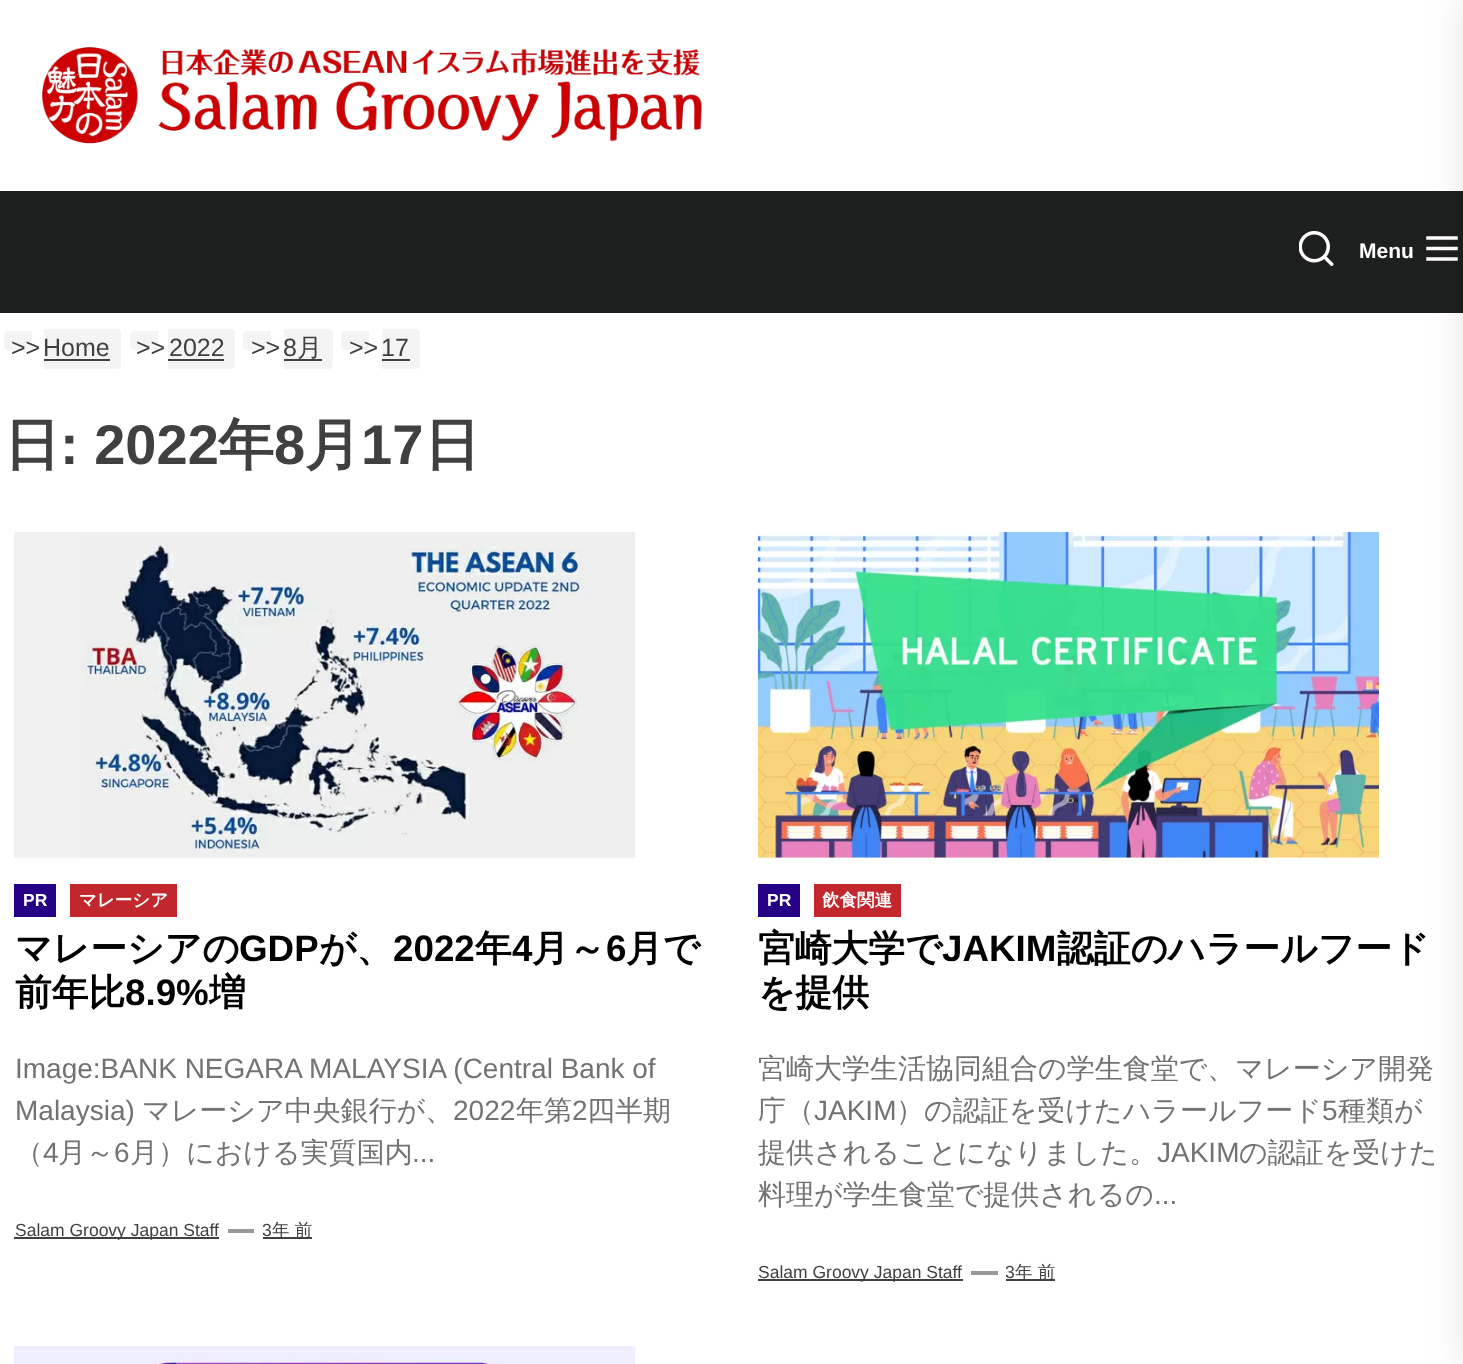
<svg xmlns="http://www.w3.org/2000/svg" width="1463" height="1364">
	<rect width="100%" height="100%" fill="#FFFFFF" />
	<image x="42" y="47" width="660" height="97" href="assets/img1.png" />
	<rect x="0" y="191" width="1463" height="122" fill="#1D201F" />
	<image x="1299" y="231" width="35" height="35" href="assets/img2.png" />
	<text x="1359" y="258" font-family="Liberation Sans" font-size="21" font-weight="700" fill="#FFFFFF">Menu</text>
	<image x="1426" y="236" width="32" height="25" href="assets/img3.png" />
	<rect x="1463" y="0" width="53" height="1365" fill="#000000" fill-opacity="0.1" filter="blur(17.5px)" />
	<path d="M8 331H32V350H8C6 350 4 348 4 346V335C4 333 6 331 8 331Z" fill="#F4F4F4" />
	<path d="M44 329H117C119 329 121 331 121 333V365C121 367 119 369 117 369H44Z" fill="#F4F4F4" />
	<g font-family="Liberation Sans" font-size="25" fill="#404040">
		<text x="11" y="356">&gt;&gt;</text>
		<text x="43" y="356">Home</text>
	</g>
	<rect x="44" y="359" width="66" height="2" fill="#404040" />
	<path d="M134 331H158V350H134C132 350 130 348 130 346V335C130 333 132 331 134 331Z" fill="#F4F4F4" />
	<path d="M168 329H231C233 329 235 331 235 333V365C235 367 233 369 231 369H168Z" fill="#F4F4F4" />
	<g font-family="Liberation Sans" font-size="25" fill="#404040">
		<text x="136" y="356">&gt;&gt;</text>
		<text x="169" y="356">2022</text>
	</g>
	<rect x="168" y="359" width="56" height="2" fill="#404040" />
	<path d="M247 331H271V350H247C245 350 243 348 243 346V335C243 333 245 331 247 331Z" fill="#F4F4F4" />
	<path d="M284 329H329C331 329 333 331 333 333V365C333 367 331 369 329 369H284Z" fill="#F4F4F4" />
	<g font-family="Liberation Sans" font-size="25" fill="#404040">
		<text x="251" y="356">&gt;&gt;</text>
		<text x="283" y="356">8</text>
	</g>
	<rect x="284" y="359" width="38" height="2" fill="#404040" />
	<text x="297" y="356" font-family="WenQuanYi Zen Hei" font-size="25" font-weight="500" fill="#404040">月</text>
	<path d="M345 331H369V350H345C343 350 341 348 341 346V335C341 333 343 331 345 331Z" fill="#F4F4F4" />
	<path d="M382 329H416C418 329 420 331 420 333V365C420 367 418 369 416 369H382Z" fill="#F4F4F4" />
	<g font-family="Liberation Sans" font-size="25" fill="#404040">
		<text x="349" y="356">&gt;&gt;</text>
		<text x="381" y="356">17</text>
	</g>
	<rect x="382" y="359" width="28" height="2" fill="#404040" />
	<text x="4" y="464" font-family="WenQuanYi Zen Hei" font-size="56" font-weight="700" fill="#404040">日</text>
	<text x="60" y="464" font-family="Liberation Sans" font-size="56" font-weight="700" fill="#404040">: 2022</text>
	<text x="218" y="464" font-family="WenQuanYi Zen Hei" font-size="56" font-weight="700" fill="#404040">年</text>
	<text x="274" y="464" font-family="Liberation Sans" font-size="56" font-weight="700" fill="#404040">8</text>
	<text x="305" y="464" font-family="WenQuanYi Zen Hei" font-size="56" font-weight="700" fill="#404040">月</text>
	<text x="361" y="464" font-family="Liberation Sans" font-size="56" font-weight="700" fill="#404040">17</text>
	<text x="424" y="464" font-family="WenQuanYi Zen Hei" font-size="56" font-weight="700" fill="#404040">日</text>
	<rect x="14" y="532" width="621" height="326" fill="#F1F1F1" />
	<image x="81" y="532" width="555" height="325" href="assets/img4.png" />
	<rect x="14" y="884" width="42" height="33" fill="#260085" />
	<text x="23" y="906" font-family="Liberation Sans" font-size="17.5" font-weight="700" fill="#FFFFFF">PR</text>
	<rect x="70" y="884" width="107" height="33" fill="#C1272D" />
	<text x="79" y="906" font-family="WenQuanYi Zen Hei" font-size="17.5" font-weight="700" fill="#FFFFFF">マレーシア</text>
	<text x="15" y="961" font-family="WenQuanYi Zen Hei" font-size="36.75" font-weight="700" fill="#000000">マレーシアの</text>
	<text x="239" y="961" font-family="Liberation Sans" font-size="36.75" font-weight="700" fill="#000000">GDP</text>
	<text x="319" y="961" font-family="WenQuanYi Zen Hei" font-size="36.75" font-weight="700" fill="#000000">が、</text>
	<text x="393" y="961" font-family="Liberation Sans" font-size="36.75" font-weight="700" fill="#000000">2022</text>
	<text x="475" y="961" font-family="WenQuanYi Zen Hei" font-size="36.75" font-weight="700" fill="#000000">年</text>
	<text x="512" y="961" font-family="Liberation Sans" font-size="36.75" font-weight="700" fill="#000000">4</text>
	<text x="532" y="961" font-family="WenQuanYi Zen Hei" font-size="36.75" font-weight="700" fill="#000000">月～</text>
	<text x="606" y="961" font-family="Liberation Sans" font-size="36.75" font-weight="700" fill="#000000">6</text>
	<g font-family="WenQuanYi Zen Hei" font-size="36.75" font-weight="700" fill="#000000">
		<text x="626" y="961">月で</text>
		<text x="15" y="1005">前年比</text>
	</g>
	<text x="125" y="1005" font-family="Liberation Sans" font-size="36.75" font-weight="700" fill="#000000">8.9%</text>
	<text x="209" y="1005" font-family="WenQuanYi Zen Hei" font-size="36.75" font-weight="700" fill="#000000">増</text>
	<g font-family="Liberation Sans" font-size="28" fill="#727272">
		<text x="15" y="1078">Image:BANK NEGARA MALAYSIA (Central Bank of</text>
		<text x="15" y="1120">Malaysia)</text>
	</g>
	<text x="142" y="1120" font-family="WenQuanYi Zen Hei" font-size="28" font-weight="500" fill="#727272">マレーシア中央銀行が、</text>
	<text x="453" y="1120" font-family="Liberation Sans" font-size="28" fill="#727272">2022</text>
	<text x="516" y="1120" font-family="WenQuanYi Zen Hei" font-size="28" font-weight="500" fill="#727272">年第</text>
	<text x="572" y="1120" font-family="Liberation Sans" font-size="28" fill="#727272">2</text>
	<g font-family="WenQuanYi Zen Hei" font-size="28" font-weight="500" fill="#727272">
		<text x="587" y="1120">四半期</text>
		<text x="15" y="1162">（</text>
	</g>
	<text x="43" y="1162" font-family="Liberation Sans" font-size="28" fill="#727272">4</text>
	<text x="58" y="1162" font-family="WenQuanYi Zen Hei" font-size="28" font-weight="500" fill="#727272">月～</text>
	<text x="114" y="1162" font-family="Liberation Sans" font-size="28" fill="#727272">6</text>
	<text x="130" y="1162" font-family="WenQuanYi Zen Hei" font-size="28" font-weight="500" fill="#727272">月）における実質国内</text>
	<text x="412" y="1162" font-family="Liberation Sans" font-size="28" fill="#727272">...</text>
	<rect x="14" y="1237" width="205" height="2" fill="#404040" />
	<text x="15" y="1236" font-family="Liberation Sans" font-size="17.5" fill="#404040">Salam Groovy Japan Staff</text>
	<rect x="228" y="1229" width="26" height="4" fill="#999999" />
	<text x="262" y="1236" font-family="Liberation Sans" font-size="17.5" fill="#404040">3</text>
	<rect x="263" y="1237" width="49" height="2" fill="#404040" />
	<text x="272" y="1236" font-family="WenQuanYi Zen Hei" font-size="17.5" font-weight="500" fill="#404040">年 前</text>
	<rect x="758" y="857" width="621" height="1" fill="#F1F1F1" />
	<image x="757" y="532" width="622" height="326" href="assets/img5.png" />
	<rect x="758" y="884" width="42" height="33" fill="#260085" />
	<text x="767" y="906" font-family="Liberation Sans" font-size="17.5" font-weight="700" fill="#FFFFFF">PR</text>
	<rect x="814" y="884" width="87" height="33" fill="#C1272D" />
	<text x="822" y="906" font-family="WenQuanYi Zen Hei" font-size="17.5" font-weight="700" fill="#FFFFFF">飲食関連</text>
	<text x="758" y="961" font-family="WenQuanYi Zen Hei" font-size="36.75" font-weight="700" fill="#000000">宮崎大学で</text>
	<text x="942" y="961" font-family="Liberation Sans" font-size="36.75" font-weight="700" fill="#000000">JAKIM</text>
	<g font-family="WenQuanYi Zen Hei" font-size="36.75" font-weight="700" fill="#000000">
		<text x="1057" y="961">認証のハラールフード</text>
		<text x="758" y="1005">を提供</text>
	</g>
	<g font-family="WenQuanYi Zen Hei" font-size="28" font-weight="500" fill="#727272">
		<text x="758" y="1078">宮崎大学生活協同組合の学生食堂で、マレーシア開発</text>
		<text x="758" y="1120">庁（</text>
	</g>
	<text x="814" y="1120" font-family="Liberation Sans" font-size="28" fill="#727272">JAKIM</text>
	<text x="896" y="1120" font-family="WenQuanYi Zen Hei" font-size="28" font-weight="500" fill="#727272">）の認証を受けたハラールフード</text>
	<text x="1322" y="1120" font-family="Liberation Sans" font-size="28" fill="#727272">5</text>
	<g font-family="WenQuanYi Zen Hei" font-size="28" font-weight="500" fill="#727272">
		<text x="1338" y="1120">種類が</text>
		<text x="758" y="1162">提供されることになりました。</text>
	</g>
	<text x="1157" y="1162" font-family="Liberation Sans" font-size="28" fill="#727272">JAKIM</text>
	<g font-family="WenQuanYi Zen Hei" font-size="28" font-weight="500" fill="#727272">
		<text x="1239" y="1162">の認証を受けた</text>
		<text x="758" y="1204">料理が学生食堂で提供されるの</text>
	</g>
	<text x="1154" y="1204" font-family="Liberation Sans" font-size="28" fill="#727272">...</text>
	<rect x="758" y="1279" width="205" height="2" fill="#404040" />
	<text x="758" y="1278" font-family="Liberation Sans" font-size="17.5" fill="#404040">Salam Groovy Japan Staff</text>
	<rect x="971" y="1271" width="27" height="4" fill="#999999" />
	<text x="1005" y="1278" font-family="Liberation Sans" font-size="17.5" fill="#404040">3</text>
	<rect x="1006" y="1279" width="49" height="2" fill="#404040" />
	<text x="1015" y="1278" font-family="WenQuanYi Zen Hei" font-size="17.5" font-weight="500" fill="#404040">年 前</text>
	<image x="14" y="1346" width="622" height="18" href="assets/img6.png" />
</svg>
